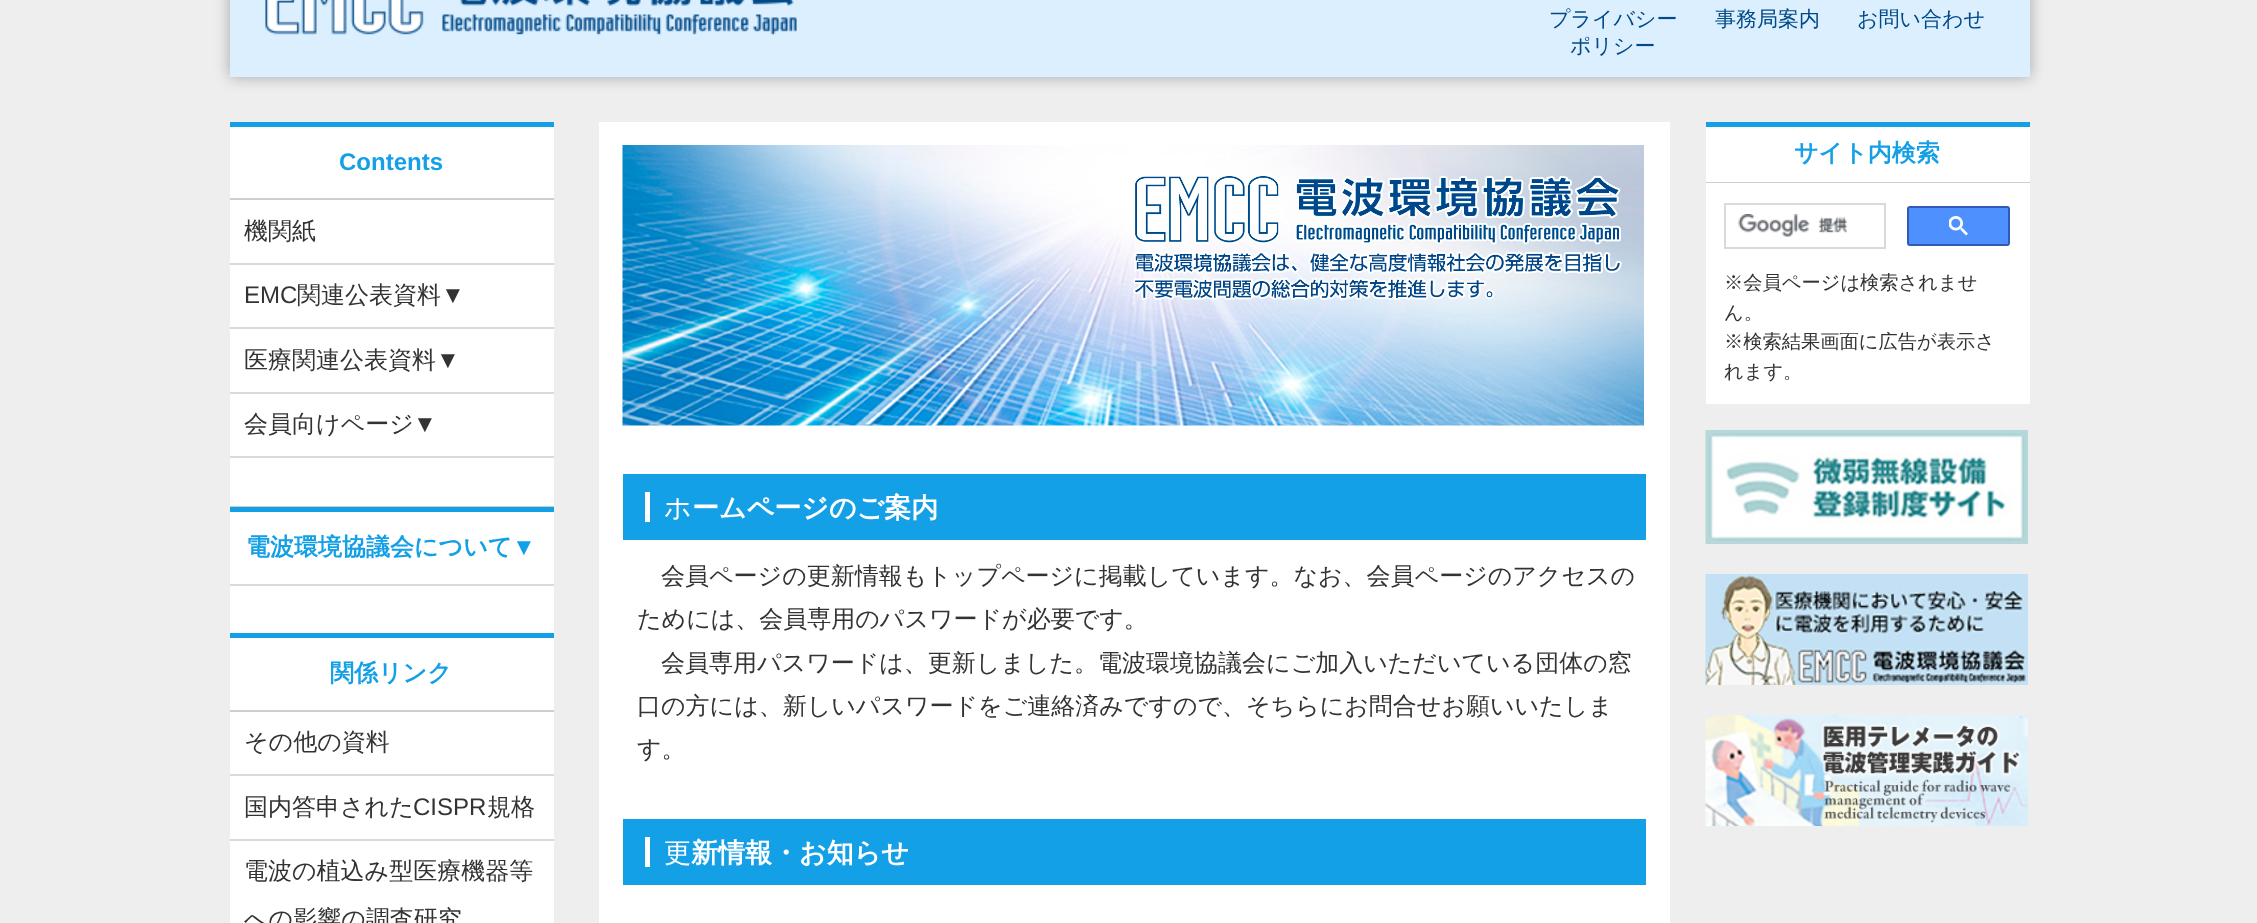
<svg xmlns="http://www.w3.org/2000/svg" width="2257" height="923">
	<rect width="100%" height="100%" fill="#EEEEEE" />
	<rect x="230" y="-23" width="1800" height="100" fill="#000000" fill-opacity="0.3" filter="blur(7.5px)" />
	<rect x="230" y="0" width="1800" height="77" fill="#DBEFFF" />
	<image x="265" y="0" width="532" height="35" href="assets/img1.png" />
	<g font-family="WenQuanYi Zen Hei" font-size="21" font-weight="500" fill="#024988">
		<text x="1549" y="26">プライバシー</text>
		<text x="1570" y="53">ポリシー</text>
		<text x="1715" y="26">事務局案内</text>
		<text x="1857" y="26">お問い合わせ</text>
	</g>
	<rect x="230" y="127" width="324" height="796" fill="#FFFFFF" />
	<rect x="230" y="122" width="324" height="5" fill="#14A0E6" />
	<text x="339" y="170" font-family="Liberation Sans" font-size="24" font-weight="700" fill="#14A0E6">Contents</text>
	<rect x="230" y="198" width="324" height="2" fill="#CFCFCF" />
	<rect x="230" y="263" width="324" height="2" fill="#D9D9D9" />
	<text x="244" y="239" font-family="WenQuanYi Zen Hei" font-size="24" font-weight="500" fill="#333333">機関紙</text>
	<rect x="230" y="327" width="324" height="2" fill="#D9D9D9" />
	<text x="244" y="303" font-family="Liberation Sans" font-size="24" fill="#333333">EMC</text>
	<text x="297" y="303" font-family="WenQuanYi Zen Hei" font-size="24" font-weight="500" fill="#333333">関連公表資料</text>
	<text x="441" y="303" font-family="Liberation Sans" font-size="24" fill="#333333">▼</text>
	<rect x="230" y="392" width="324" height="2" fill="#D9D9D9" />
	<text x="244" y="368" font-family="WenQuanYi Zen Hei" font-size="24" font-weight="500" fill="#333333">医療関連公表資料</text>
	<text x="436" y="368" font-family="Liberation Sans" font-size="24" fill="#333333">▼</text>
	<rect x="230" y="456" width="324" height="2" fill="#D9D9D9" />
	<text x="244" y="432" font-family="WenQuanYi Zen Hei" font-size="24" font-weight="500" fill="#333333">会員向けページ</text>
	<text x="413" y="432" font-family="Liberation Sans" font-size="24" fill="#333333">▼</text>
	<rect x="230" y="506" width="324" height="1" fill="#CFCFCF" />
	<rect x="230" y="584" width="324" height="2" fill="#D9D9D9" />
	<rect x="230" y="507" width="324" height="5" fill="#14A0E6" />
	<text x="246" y="555" font-family="WenQuanYi Zen Hei" font-size="24" font-weight="700" fill="#14A0E6">電波環境協議会について</text>
	<text x="512" y="555" font-family="Liberation Sans" font-size="24" font-weight="700" fill="#14A0E6">▼</text>
	<rect x="230" y="633" width="324" height="5" fill="#14A0E6" />
	<text x="330" y="681" font-family="WenQuanYi Zen Hei" font-size="24" font-weight="700" fill="#14A0E6">関係リンク</text>
	<rect x="230" y="710" width="324" height="2" fill="#CFCFCF" />
	<rect x="230" y="774" width="324" height="2" fill="#D9D9D9" />
	<text x="244" y="750" font-family="WenQuanYi Zen Hei" font-size="24" font-weight="500" fill="#333333">その他の資料</text>
	<rect x="230" y="839" width="324" height="2" fill="#D9D9D9" />
	<text x="244" y="815" font-family="WenQuanYi Zen Hei" font-size="24" font-weight="500" fill="#333333">国内答申された</text>
	<text x="413" y="815" font-family="Liberation Sans" font-size="24" fill="#333333">CISPR</text>
	<g font-family="WenQuanYi Zen Hei" font-size="24" font-weight="500" fill="#333333">
		<text x="487" y="815">規格</text>
		<text x="244" y="879">電波の植込み型医療機器等</text>
		<text x="244" y="927">への影響の調査研究</text>
	</g>
	<rect x="599" y="122" width="1071" height="801" fill="#FFFFFF" />
	<image x="622" y="145" width="1022" height="281" href="assets/img2.png" />
	<rect x="623" y="474" width="1023" height="66" fill="#14A0E6" />
	<text x="664" y="517" font-family="Noto Sans" font-size="27" font-weight="100" fill="#FFFFFF">ホ</text>
	<rect x="645" y="492" width="5" height="30" fill="#FFFFFF" />
	<text x="692" y="517" font-family="WenQuanYi Zen Hei" font-size="27" font-weight="700" fill="#FFFFFF">ームページのご案内</text>
	<g font-family="WenQuanYi Zen Hei" font-size="24" font-weight="500" fill="#333333">
		<text x="661" y="584">会員ページの更新情報もトップページに掲載しています。なお、会員ページのアクセスの</text>
		<text x="637" y="627">ためには、会員専用のパスワードが必要です。</text>
		<text x="661" y="671">会員専用パスワードは、更新しました。電波環境協議会にご加入いただいている団体の窓</text>
		<text x="637" y="714">口の方には、新しいパスワードをご連絡済みですので、そちらにお問合せお願いいたしま</text>
		<text x="637" y="757">す。</text>
	</g>
	<rect x="623" y="819" width="1023" height="66" fill="#14A0E6" />
	<text x="664" y="862" font-family="Noto Sans" font-size="27" font-weight="100" fill="#FFFFFF">更</text>
	<rect x="645" y="837" width="5" height="30" fill="#FFFFFF" />
	<text x="691" y="862" font-family="WenQuanYi Zen Hei" font-size="27" font-weight="700" fill="#FFFFFF">新情報・お知らせ</text>
	<rect x="1706" y="127" width="324" height="55" fill="#FFFFFF" />
	<rect x="1706" y="122" width="324" height="5" fill="#14A0E6" />
	<rect x="1706" y="182" width="324" height="1" fill="#CFCFCF" />
	<text x="1794" y="161" font-family="WenQuanYi Zen Hei" font-size="24" font-weight="700" fill="#14A0E6">サイト内検索</text>
	<rect x="1706" y="183" width="324" height="221" fill="#FFFFFF" />
	<rect x="1725" y="204" width="160" height="44" fill="none" stroke="#D9D9D9" stroke-width="2" />
	<image x="1738" y="214" width="110" height="23" href="assets/img3.png" />
	<rect x="1908" y="207" width="101" height="38" rx="2" fill="#4D90FE" stroke="#2F5BB7" stroke-width="2" />
	<image x="1949" y="216" width="19" height="20" href="assets/img4.png" />
	<g font-family="WenQuanYi Zen Hei" font-size="19.25" font-weight="500" fill="#333333">
		<text x="1724" y="289">※会員ページは検索されませ</text>
		<text x="1724" y="319">ん。</text>
		<text x="1724" y="348">※検索結果画面に広告が表示さ</text>
		<text x="1724" y="378">れます。</text>
	</g>
	<image x="1705" y="430" width="323" height="114" href="assets/img5.png" />
	<image x="1705" y="574" width="323" height="111" href="assets/img6.png" />
	<image x="1705" y="715" width="323" height="111" href="assets/img7.png" />
</svg>
